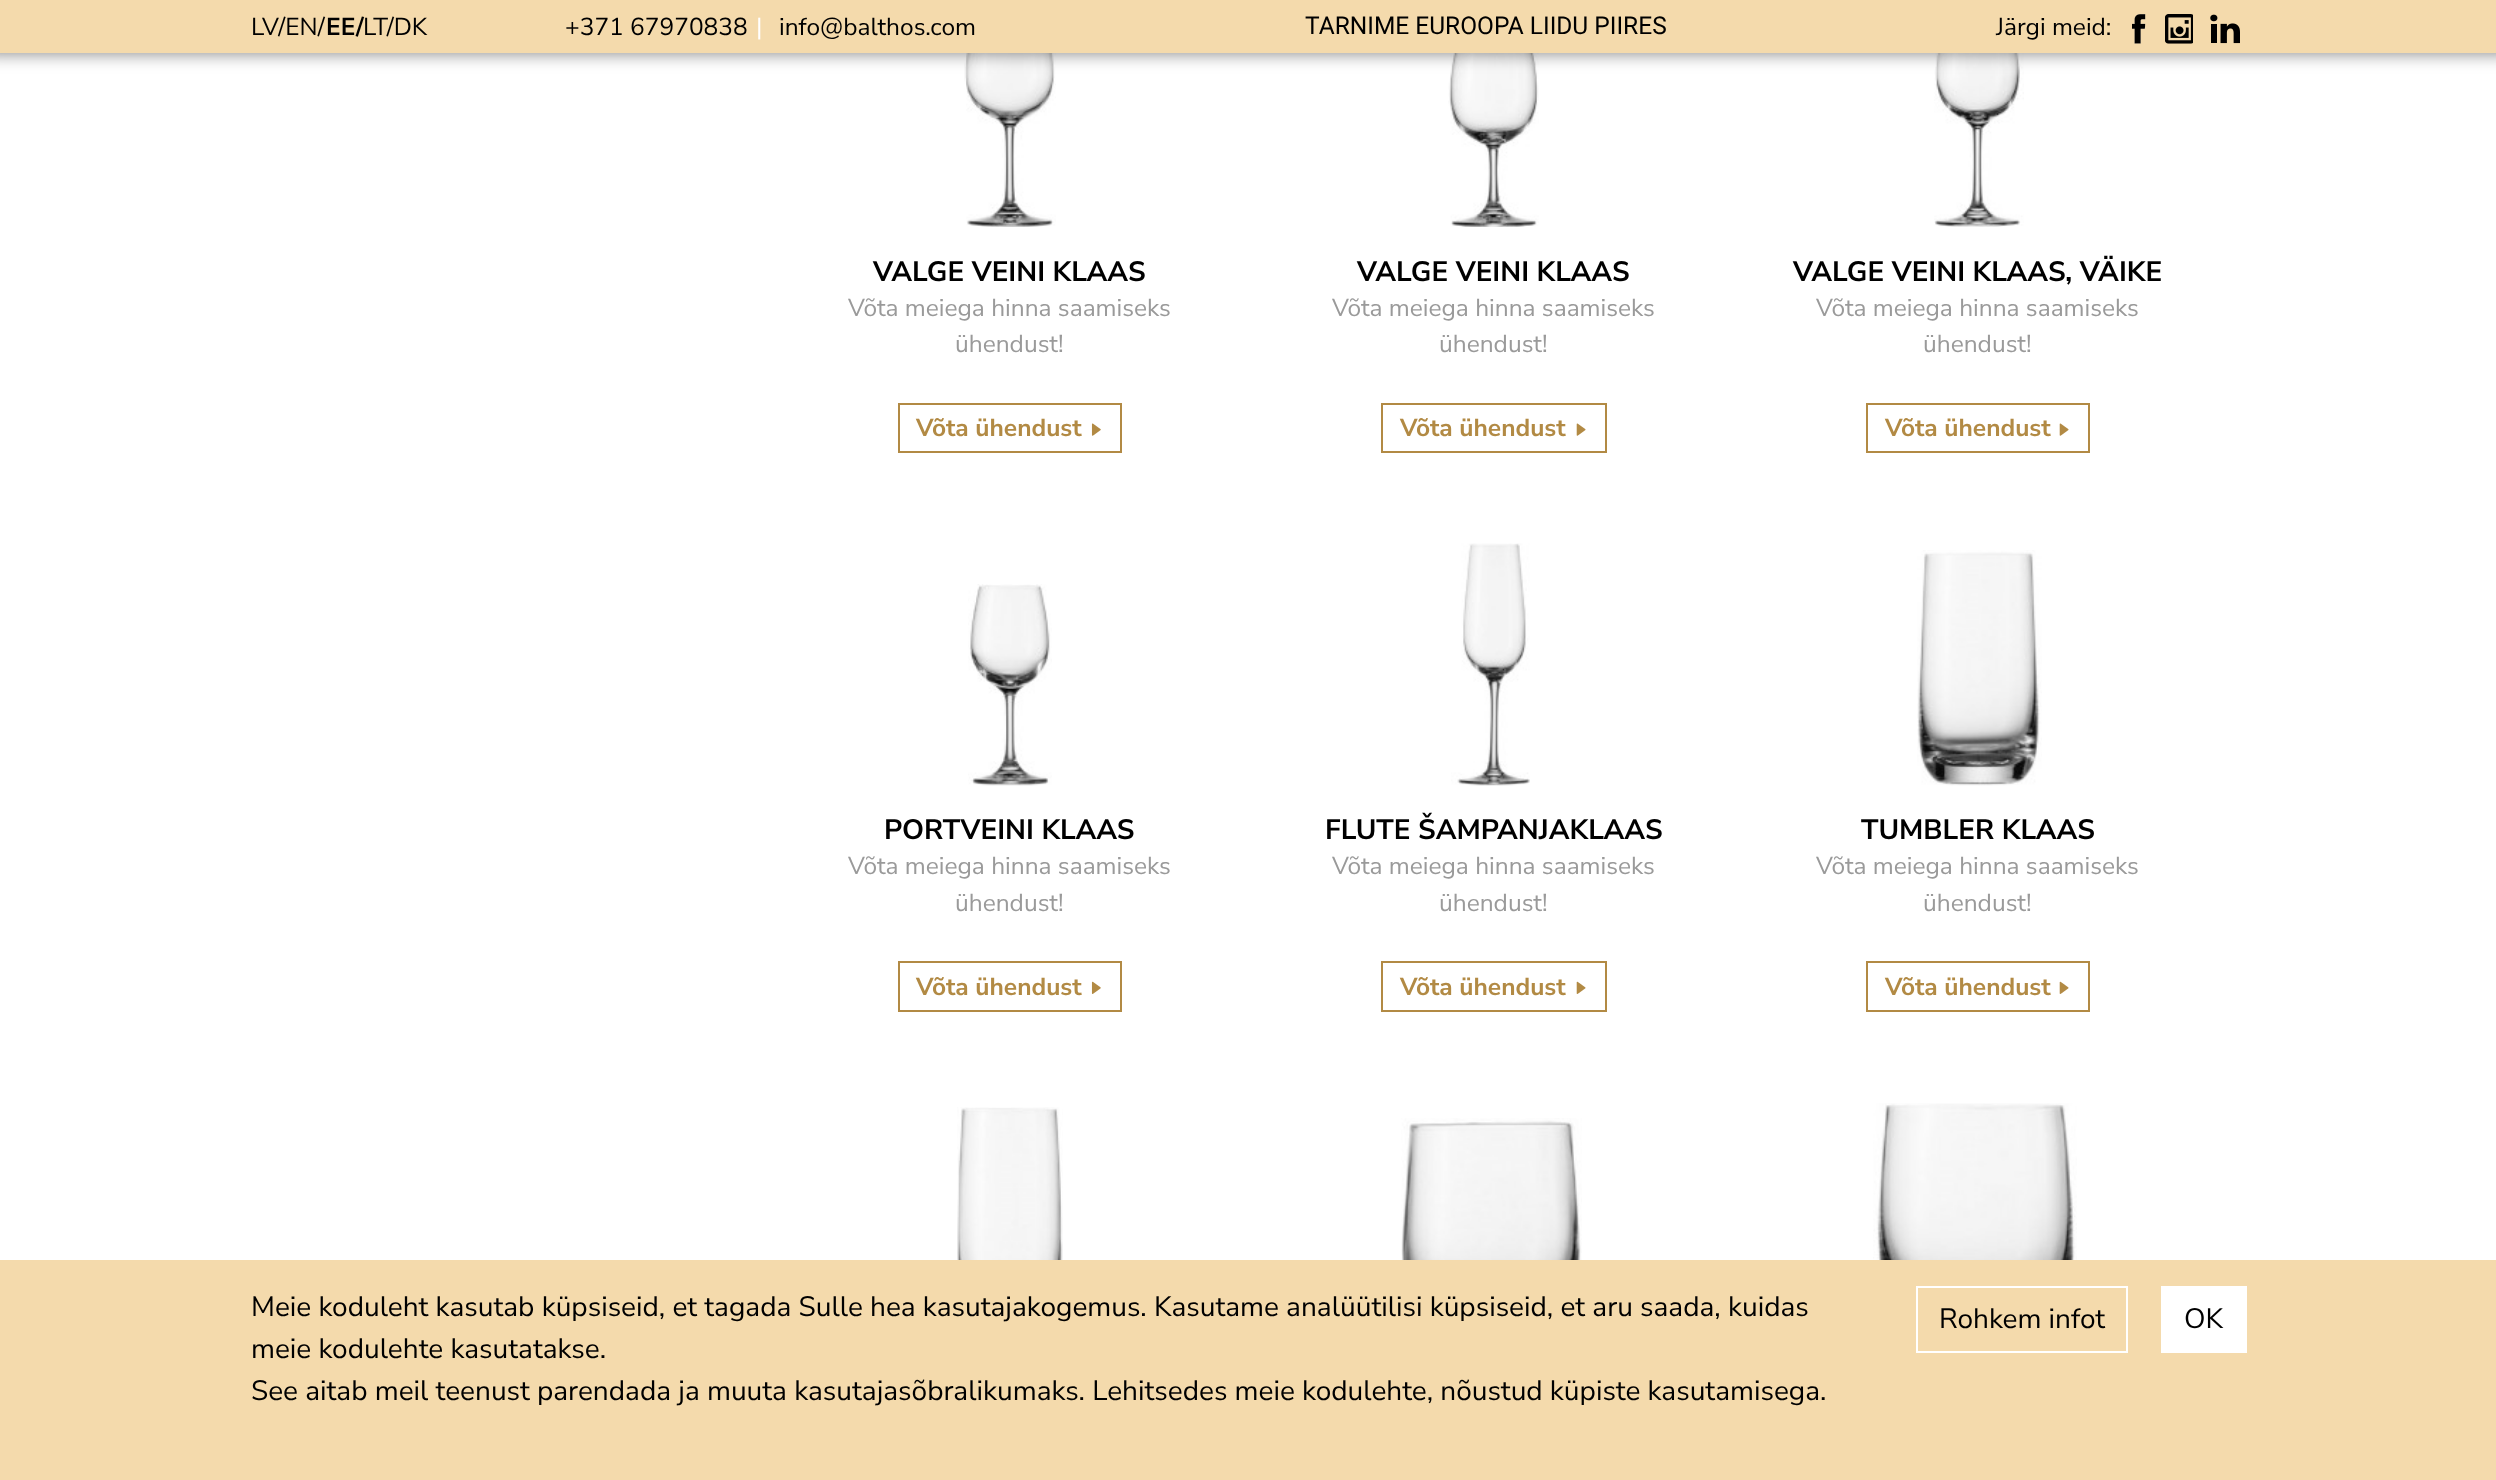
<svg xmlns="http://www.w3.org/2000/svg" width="2496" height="1480">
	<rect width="100%" height="100%" fill="#FFFFFF" />
	<image x="964" y="53" width="92" height="174" href="assets/img4.png" />
	<image x="1448" y="53" width="91" height="174" href="assets/img6.png" />
	<image x="1934" y="53" width="90" height="174" href="assets/img8.png" />
	<rect x="-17" y="-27" width="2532" height="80" fill="#000000" fill-opacity="0.5" filter="blur(9px)" />
	<rect x="0" y="0" width="2496" height="53" fill="#F4DAAC" />
	<text x="251" y="35" font-family="Nunito Sans" font-size="24.5" fill="#000000">LV/EN/</text>
	<text x="326" y="35" font-family="Nunito Sans" font-size="24.5" font-weight="700" fill="#000000">EE/</text>
	<g font-family="Nunito Sans" font-size="24.5" fill="#000000">
		<text x="363" y="35">LT/DK</text>
		<text x="565" y="35">+371 67970838</text>
	</g>
	<text x="756" y="35" font-family="Nunito Sans" font-size="24.5" fill="#FFFFFF">|</text>
	<text x="779" y="35" font-family="Nunito Sans" font-size="24.5" fill="#000000">info@balthos.com</text>
	<text x="1305" y="34" font-family="Roboto" font-size="24.5" fill="#000000">TARNIME EUROOPA LIIDU PIIRES</text>
	<text x="1996" y="35" font-family="Nunito Sans" font-size="24.5" fill="#000000">Järgi meid:</text>
	<image x="2132" y="14" width="14" height="30" href="assets/img1.png" />
	<image x="2165" y="14" width="28" height="30" href="assets/img2.png" />
	<image x="2210" y="14" width="30" height="30" href="assets/img3.png" />
	<text x="873" y="281" font-family="Nunito Sans" font-size="28" font-weight="700" fill="#000000">VALGE VEINI KLAAS</text>
	<g font-family="Nunito Sans" font-size="24.5" fill="#9A9A9A">
		<text x="848" y="316">Võta meiega hinna saamiseks</text>
		<text x="955" y="352">ühendust!</text>
	</g>
	<rect x="899" y="404" width="222" height="48" fill="none" stroke="#B28A44" stroke-width="2" />
	<text x="916" y="436" font-family="Nunito Sans" font-size="24.5" font-weight="700" fill="#B28A44">Võta ühendust</text>
	<image x="1091" y="423" width="10" height="13" href="assets/img5.png" />
	<text x="1357" y="281" font-family="Nunito Sans" font-size="28" font-weight="700" fill="#000000">VALGE VEINI KLAAS</text>
	<g font-family="Nunito Sans" font-size="24.5" fill="#9A9A9A">
		<text x="1332" y="316">Võta meiega hinna saamiseks</text>
		<text x="1439" y="352">ühendust!</text>
	</g>
	<rect x="1382" y="404" width="224" height="48" fill="none" stroke="#B28A44" stroke-width="2" />
	<text x="1400" y="436" font-family="Nunito Sans" font-size="24.5" font-weight="700" fill="#B28A44">Võta ühendust</text>
	<image x="1576" y="423" width="10" height="13" href="assets/img7.png" />
	<text x="1793" y="281" font-family="Nunito Sans" font-size="28" font-weight="700" fill="#000000">VALGE VEINI KLAAS, VÄIKE</text>
	<g font-family="Nunito Sans" font-size="24.5" fill="#9A9A9A">
		<text x="1816" y="316">Võta meiega hinna saamiseks</text>
		<text x="1923" y="352">ühendust!</text>
	</g>
	<rect x="1867" y="404" width="222" height="48" fill="none" stroke="#B28A44" stroke-width="2" />
	<text x="1885" y="436" font-family="Nunito Sans" font-size="24.5" font-weight="700" fill="#B28A44">Võta ühendust</text>
	<image x="2059" y="423" width="10" height="13" href="assets/img7.png" />
	<image x="968" y="584" width="84" height="202" href="assets/img9.png" />
	<text x="884" y="839" font-family="Nunito Sans" font-size="28" font-weight="700" fill="#000000">PORTVEINI KLAAS</text>
	<g font-family="Nunito Sans" font-size="24.5" fill="#9A9A9A">
		<text x="848" y="874">Võta meiega hinna saamiseks</text>
		<text x="955" y="911">ühendust!</text>
	</g>
	<rect x="899" y="962" width="222" height="49" fill="none" stroke="#B28A44" stroke-width="2" />
	<text x="916" y="995" font-family="Nunito Sans" font-size="24.5" font-weight="700" fill="#B28A44">Võta ühendust</text>
	<image x="1091" y="981" width="10" height="13" href="assets/img10.png" />
	<image x="1451" y="543" width="79" height="243" href="assets/img11.png" />
	<text x="1325" y="839" font-family="Nunito Sans" font-size="28" font-weight="700" fill="#000000">FLUTE ŠAMPANJAKLAAS</text>
	<g font-family="Nunito Sans" font-size="24.5" fill="#9A9A9A">
		<text x="1332" y="874">Võta meiega hinna saamiseks</text>
		<text x="1439" y="911">ühendust!</text>
	</g>
	<rect x="1382" y="962" width="224" height="49" fill="none" stroke="#B28A44" stroke-width="2" />
	<text x="1400" y="995" font-family="Nunito Sans" font-size="24.5" font-weight="700" fill="#B28A44">Võta ühendust</text>
	<image x="1576" y="981" width="10" height="13" href="assets/img12.png" />
	<image x="1917" y="550" width="125" height="236" href="assets/img13.png" />
	<text x="1861" y="839" font-family="Nunito Sans" font-size="28" font-weight="700" fill="#000000">TUMBLER KLAAS</text>
	<g font-family="Nunito Sans" font-size="24.5" fill="#9A9A9A">
		<text x="1816" y="874">Võta meiega hinna saamiseks</text>
		<text x="1923" y="911">ühendust!</text>
	</g>
	<rect x="1867" y="962" width="222" height="49" fill="none" stroke="#B28A44" stroke-width="2" />
	<text x="1885" y="995" font-family="Nunito Sans" font-size="24.5" font-weight="700" fill="#B28A44">Võta ühendust</text>
	<image x="2059" y="981" width="10" height="13" href="assets/img12.png" />
	<image x="957" y="1107" width="106" height="153" href="assets/img14.png" />
	<image x="1401" y="1118" width="181" height="142" href="assets/img15.png" />
	<image x="1873" y="1103" width="204" height="157" href="assets/img16.png" />
	<rect x="0" y="1260" width="2496" height="220" fill="#F4DAAC" />
	<g font-family="Nunito Sans" font-size="28" fill="#000000">
		<text x="251" y="1316">Meie koduleht kasutab küpsiseid, et tagada Sulle hea kasutajakogemus. Kasutame analüütilisi küpsiseid, et aru saada, kuidas</text>
		<text x="251" y="1358">meie kodulehte kasutatakse.</text>
		<text x="251" y="1400">See aitab meil teenust parendada ja muuta kasutajasõbralikumaks. Lehitsedes meie kodulehte, nõustud küpiste kasutamisega.</text>
	</g>
	<rect x="1917" y="1287" width="210" height="65" fill="none" stroke="#FFFFFF" stroke-width="2" />
	<text x="1939" y="1328" font-family="Nunito Sans" font-size="28" fill="#000000">Rohkem infot</text>
	<rect x="2161" y="1286" width="86" height="67" fill="#FFFFFF" />
	<text x="2184" y="1328" font-family="Nunito Sans" font-size="28" fill="#000000">OK</text>
</svg>
